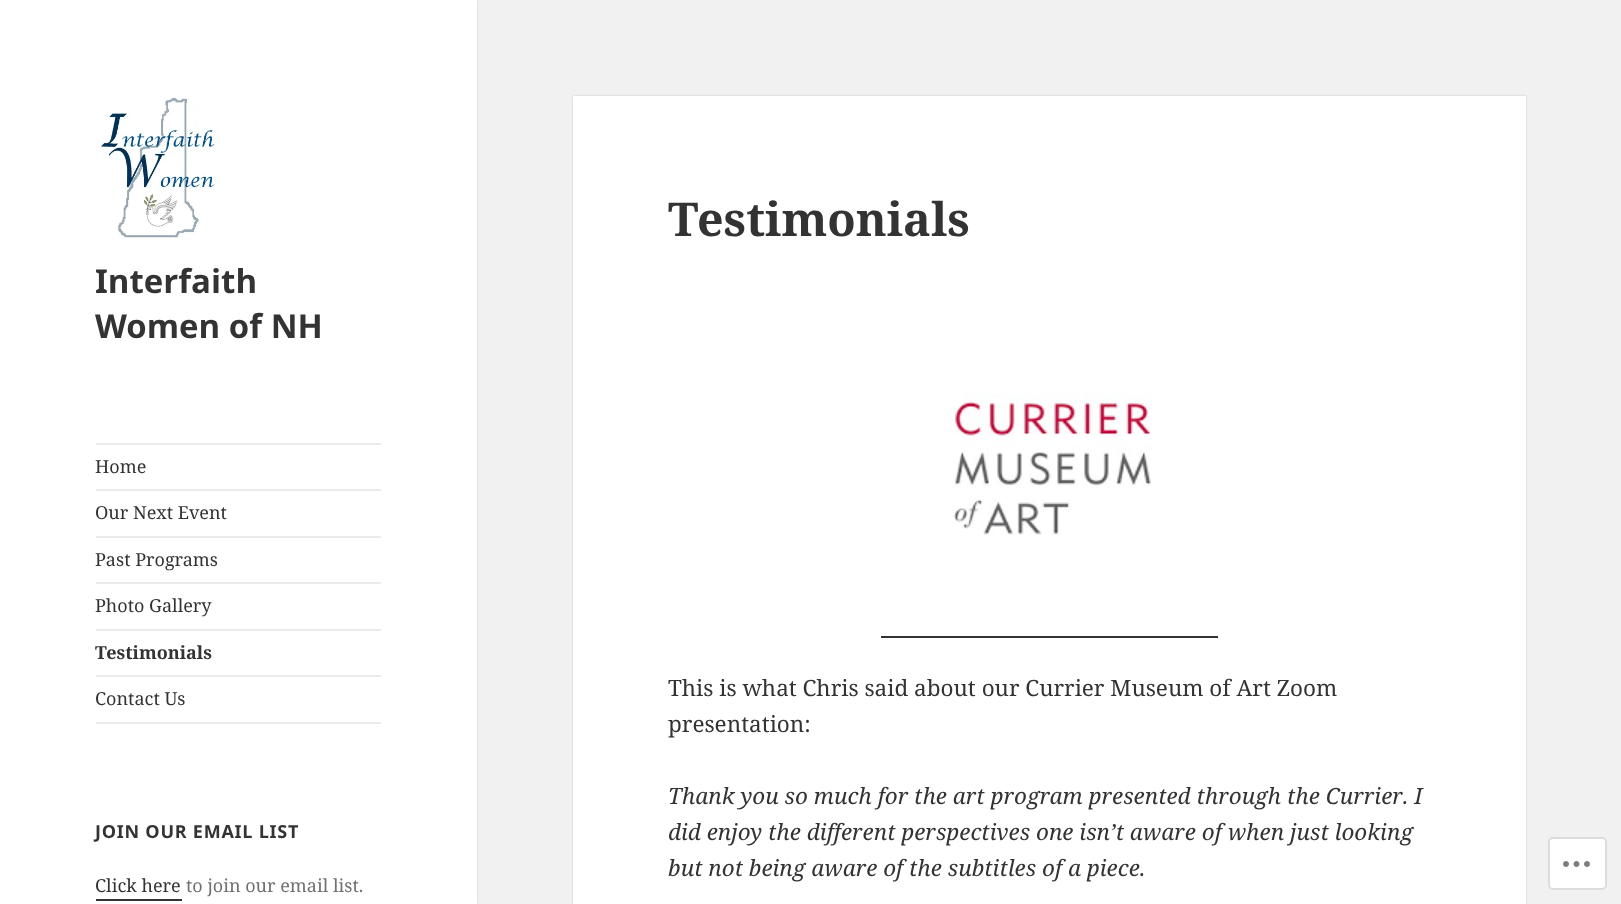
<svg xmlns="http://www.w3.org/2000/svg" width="1621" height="904">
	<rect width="100%" height="100%" fill="#F1F1F1" />
	<rect x="0" y="0" width="477" height="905" fill="#000000" fill-opacity="0.15" filter="blur(1px)" />
	<rect x="0" y="0" width="477" height="904" fill="#FFFFFF" />
	<image x="101" y="97" width="114" height="142" href="assets/img1.png" />
	<g font-family="Noto Sans" font-size="33" font-weight="700" fill="#333333">
		<text x="95" y="293">Interfaith</text>
		<text x="95" y="338">Women of NH</text>
	</g>
	<rect x="96" y="443" width="285" height="2" fill="#EBEBEB" />
	<rect x="96" y="722" width="285" height="2" fill="#EBEBEB" />
	<text x="95" y="473" font-family="Noto Serif" font-size="18" fill="#333333">Home</text>
	<rect x="96" y="489" width="285" height="2" fill="#EBEBEB" />
	<text x="95" y="519" font-family="Noto Serif" font-size="18" fill="#333333">Our Next Event</text>
	<rect x="96" y="536" width="285" height="2" fill="#EBEBEB" />
	<text x="95" y="566" font-family="Noto Serif" font-size="18" fill="#333333">Past Programs</text>
	<rect x="96" y="582" width="285" height="2" fill="#EBEBEB" />
	<text x="95" y="612" font-family="Noto Serif" font-size="18" fill="#333333">Photo Gallery</text>
	<rect x="96" y="629" width="285" height="2" fill="#EBEBEB" />
	<text x="95" y="659" font-family="Noto Serif" font-size="18" font-weight="700" fill="#333333">Testimonials</text>
	<rect x="96" y="675" width="285" height="2" fill="#EBEBEB" />
	<text x="95" y="705" font-family="Noto Serif" font-size="18" fill="#333333">Contact Us</text>
	<text x="95" y="838" font-family="Noto Sans" font-size="18" font-weight="700" letter-spacing="0.75" fill="#333333">JOIN OUR EMAIL LIST</text>
	<text x="95" y="892" font-family="Noto Serif" font-size="18" fill="#333333">Click here</text>
	<rect x="96" y="899" width="86" height="2" fill="#333333" />
	<text x="186" y="892" font-family="Noto Serif" font-size="18" fill="#707070">to join our email list.</text>
	<rect x="573" y="96" width="953" height="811" fill="#000000" fill-opacity="0.15" filter="blur(1px)" />
	<rect x="573" y="96" width="953" height="808" fill="#FFFFFF" />
	<text x="668" y="236" font-family="Noto Serif" font-size="46.5" font-weight="700" fill="#333333">Testimonials</text>
	<rect x="881" y="636" width="337" height="2" fill="#333333" />
	<image x="949" y="393" width="202" height="142" href="assets/img2.png" />
	<g font-family="Noto Serif" font-size="22.5" fill="#333333">
		<text x="668" y="696">This is what Chris said about our Currier Museum of Art Zoom</text>
		<text x="668" y="732">presentation:</text>
	</g>
	<g font-family="Noto Serif" font-size="22.5" font-style="italic" fill="#333333">
		<text x="668" y="804">Thank you so much for the art program presented through the Currier. I</text>
		<text x="668" y="840">did enjoy the different perspectives one isn’t aware of when just looking</text>
		<text x="668" y="876">but not being aware of the subtitles of a piece.</text>
	</g>
	<rect x="1549" y="838" width="57" height="51" rx="4" fill="#FFFFFF" stroke="#DCDCDE" stroke-width="2" />
	<image x="1563" y="861" width="27" height="6" href="assets/img3.png" />
</svg>
